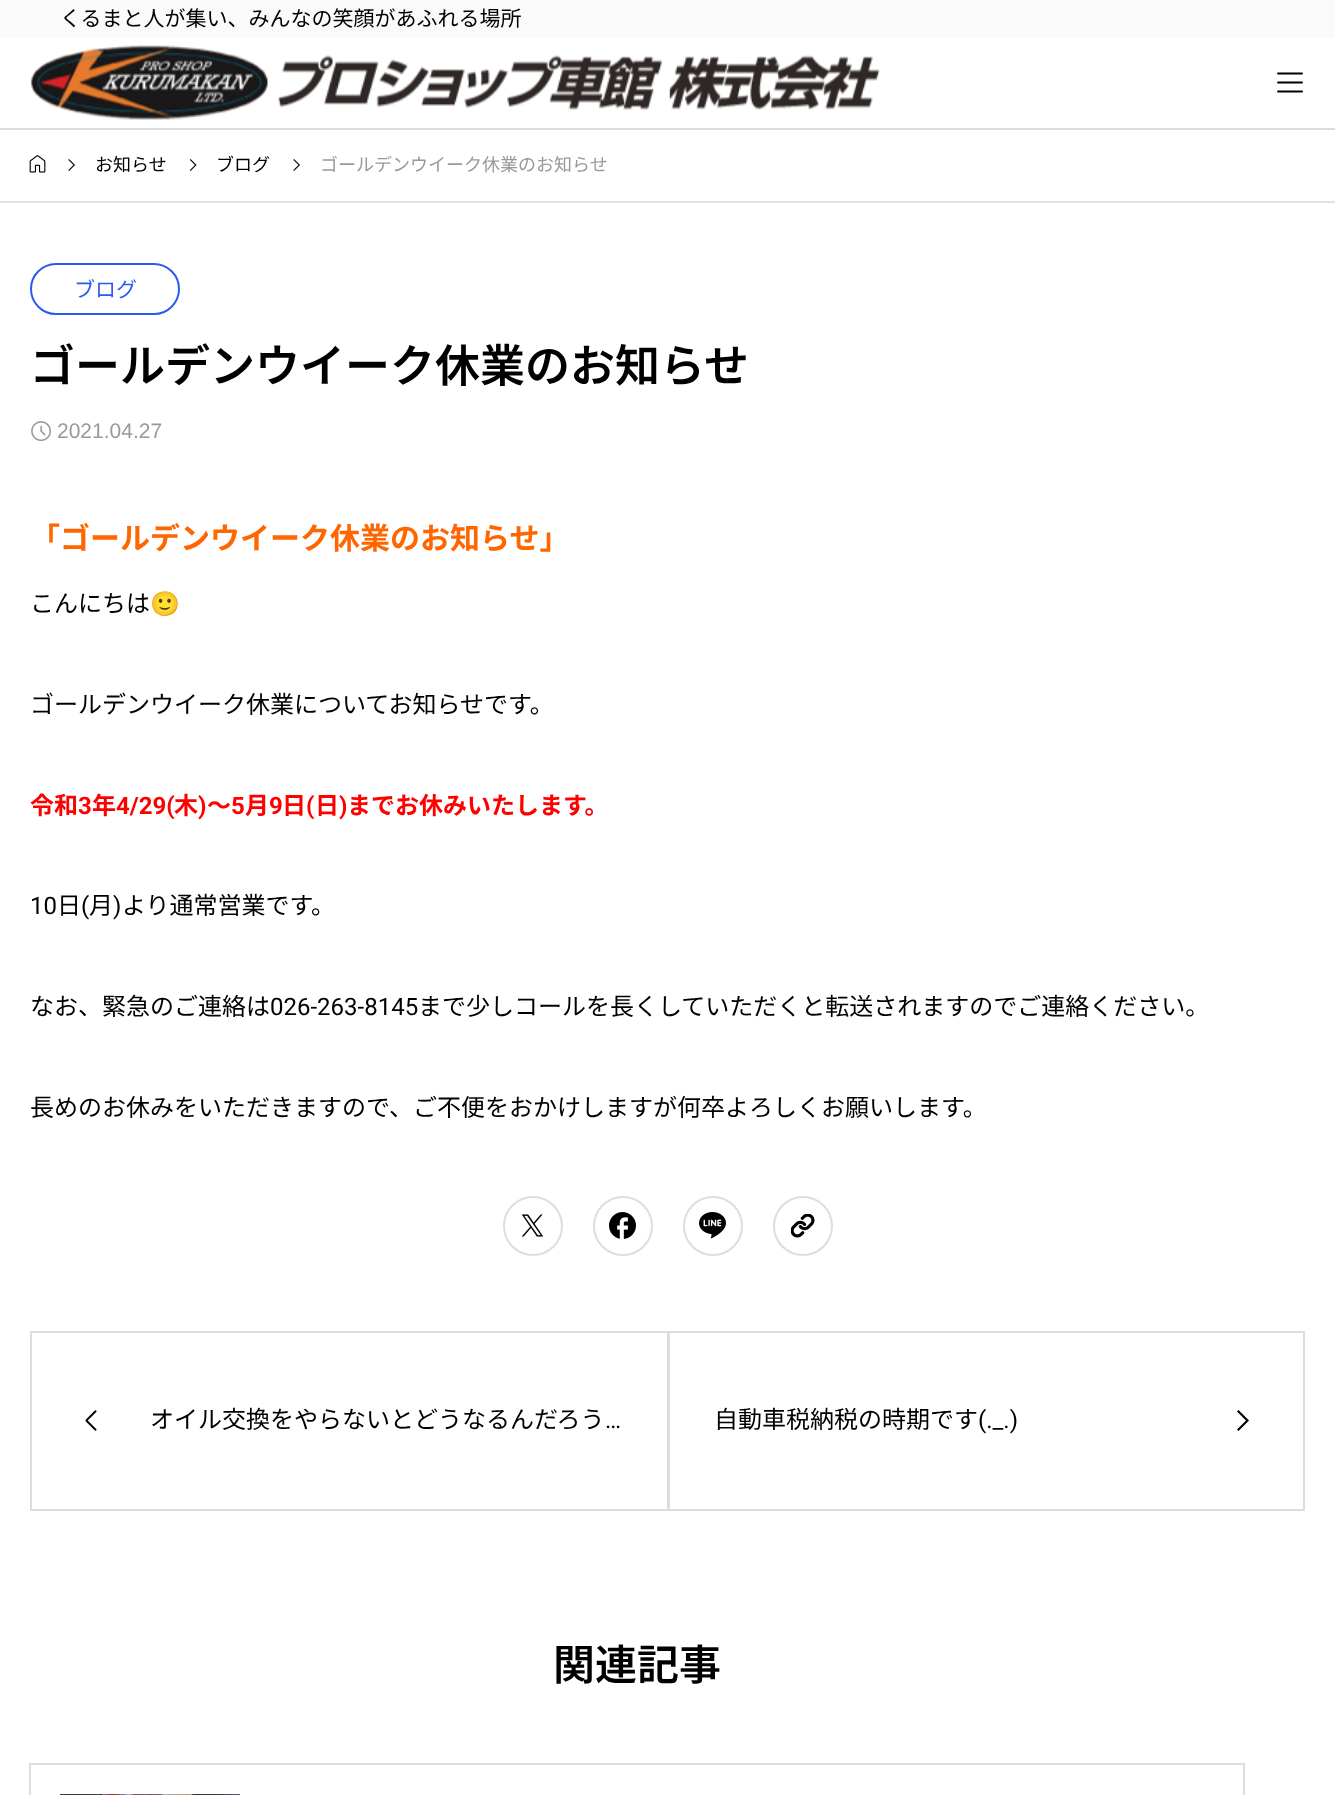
<svg xmlns="http://www.w3.org/2000/svg" width="1335" height="1795">
	<rect width="100%" height="100%" fill="#FFFFFF" />
	<rect x="0" y="0" width="1335" height="38" fill="#FAFAFA" />
	<text x="60" y="26" font-family="Noto Sans JP" font-size="21" fill="#000000">くるまと人が集い、みんなの笑顔があふれる場所</text>
	<image x="31" y="45" width="849" height="75" href="assets/img1.png" />
	<path d="M1278 82.5H1302M1278 73.5H1302M1278 91.5H1302" fill="none" stroke="#000000" stroke-width="1.9" stroke-linecap="round" stroke-linejoin="round" />
	<rect x="0" y="128" width="1335" height="2" fill="#DDDDDD" />
	<rect x="0" y="201" width="1335" height="2" fill="#E2E2E2" />
	<image x="29" y="155" width="17" height="18" href="assets/img2.png" />
	<image x="68" y="159" width="7" height="12" href="assets/img3.png" />
	<text x="95" y="171" font-family="Noto Sans JP" font-size="18" fill="#000000">お知らせ</text>
	<image x="189" y="159" width="8" height="12" href="assets/img4.png" />
	<text x="216" y="171" font-family="Noto Sans JP" font-size="18" fill="#000000">ブログ</text>
	<image x="293" y="159" width="7" height="12" href="assets/img3.png" />
	<text x="320" y="171" font-family="Noto Sans JP" font-size="18" fill="#999999">ゴールデンウイーク休業のお知らせ</text>
	<rect x="31" y="264" width="148" height="50" rx="25" fill="none" stroke="#2A5AF4" stroke-width="2" />
	<text x="74" y="297" font-family="Noto Sans JP" font-size="21" fill="#2A5AF4">ブログ</text>
	<text x="30" y="382" font-family="Noto Sans JP" font-size="45" font-weight="600" fill="#000000">ゴールデンウイーク休業のお知らせ</text>
	<image x="31" y="421" width="20" height="20" href="assets/img5.png" />
	<text x="57" y="438" font-family="Liberation Sans" font-size="21" fill="#999999">2021.04.27</text>
	<text x="30" y="549" font-family="Noto Sans JP" font-size="30" font-weight="700" fill="#FF6600">「ゴールデンウイーク休業のお知らせ」</text>
	<text x="30" y="612" font-family="Noto Sans JP" font-size="24" fill="#000000">こんにちは</text>
	<text x="150" y="612" font-family="Noto Color Emoji" font-size="24" fill="#000000">🙂</text>
	<text x="30" y="713" font-family="Noto Sans JP" font-size="24" fill="#000000">ゴールデンウイーク休業についてお知らせです。</text>
	<text x="30" y="814" font-family="Noto Sans JP" font-size="24" font-weight="700" fill="#FF0000">令和</text>
	<text x="78" y="814" font-family="Roboto" font-size="24" font-weight="700" fill="#FF0000">3</text>
	<text x="92" y="814" font-family="Noto Sans JP" font-size="24" font-weight="700" fill="#FF0000">年</text>
	<text x="116" y="814" font-family="Roboto" font-size="24" font-weight="700" fill="#FF0000">4/29(</text>
	<text x="174" y="814" font-family="Noto Sans JP" font-size="24" font-weight="700" fill="#FF0000">木</text>
	<text x="198" y="814" font-family="Roboto" font-size="24" font-weight="700" fill="#FF0000">)</text>
	<text x="207" y="814" font-family="Noto Sans JP" font-size="24" font-weight="700" fill="#FF0000">～</text>
	<text x="231" y="814" font-family="Roboto" font-size="24" font-weight="700" fill="#FF0000">5</text>
	<text x="245" y="814" font-family="Noto Sans JP" font-size="24" font-weight="700" fill="#FF0000">月</text>
	<text x="269" y="814" font-family="Roboto" font-size="24" font-weight="700" fill="#FF0000">9</text>
	<text x="282" y="814" font-family="Noto Sans JP" font-size="24" font-weight="700" fill="#FF0000">日</text>
	<text x="306" y="814" font-family="Roboto" font-size="24" font-weight="700" fill="#FF0000">(</text>
	<text x="315" y="814" font-family="Noto Sans JP" font-size="24" font-weight="700" fill="#FF0000">日</text>
	<text x="339" y="814" font-family="Roboto" font-size="24" font-weight="700" fill="#FF0000">)</text>
	<text x="347" y="814" font-family="Noto Sans JP" font-size="24" font-weight="700" fill="#FF0000">までお休みいたします。</text>
	<text x="30" y="914" font-family="Roboto" font-size="24" fill="#000000">10</text>
	<text x="57" y="914" font-family="Noto Sans JP" font-size="24" fill="#000000">日</text>
	<text x="81" y="914" font-family="Roboto" font-size="24" fill="#000000">(</text>
	<text x="89" y="914" font-family="Noto Sans JP" font-size="24" fill="#000000">月</text>
	<text x="113" y="914" font-family="Roboto" font-size="24" fill="#000000">)</text>
	<g font-family="Noto Sans JP" font-size="24" fill="#000000">
		<text x="122" y="914">より通常営業です。</text>
		<text x="30" y="1015">なお、緊急のご連絡は</text>
	</g>
	<text x="270" y="1015" font-family="Roboto" font-size="24" fill="#000000">026-263-8145</text>
	<g font-family="Noto Sans JP" font-size="24" fill="#000000">
		<text x="418" y="1015">まで少しコールを長くしていただくと転送されますのでご連絡ください。</text>
		<text x="30" y="1116">長めのお休みをいただきますので、ご不便をおかけしますが何卒よろしくお願いします。</text>
	</g>
	<circle cx="533" cy="1226" r="29" fill="none" stroke="#DDDDDD" stroke-width="2" />
	<image x="521" y="1214" width="23" height="23" href="assets/img6.png" />
	<circle cx="623" cy="1226" r="29" fill="none" stroke="#DDDDDD" stroke-width="2" />
	<image x="609" y="1212" width="27" height="27" href="assets/img7.png" />
	<circle cx="713" cy="1226" r="29" fill="none" stroke="#DDDDDD" stroke-width="2" />
	<image x="699" y="1212" width="27" height="27" href="assets/img8.png" />
	<circle cx="803" cy="1226" r="29" fill="none" stroke="#DDDDDD" stroke-width="2" />
	<image x="791" y="1214" width="24" height="24" href="assets/img9.png" />
	<rect x="31" y="1332" width="637" height="178" fill="none" stroke="#DDDDDD" stroke-width="2" />
	<image x="85" y="1410" width="12" height="21" href="assets/img10.png" />
	<text x="150" y="1428" font-family="Noto Sans JP" font-size="24" fill="#000000">オイル交換をやらないとどうなるんだろう</text>
	<text x="605" y="1428" font-family="Roboto" font-size="24" fill="#000000">…</text>
	<rect x="669" y="1332" width="635" height="178" fill="none" stroke="#DDDDDD" stroke-width="2" />
	<text x="714" y="1428" font-family="Noto Sans JP" font-size="24" fill="#000000">自動車税納税の時期です</text>
	<text x="978" y="1428" font-family="Roboto" font-size="24" fill="#000000">(._.)</text>
	<path d="M1246 1420.5L1237 1411.5L1238.5 1410L1249 1420.5L1238.5 1431L1237 1429.5Z" fill="#000000" />
	<text x="553" y="1680" font-family="Noto Sans JP" font-size="42" font-weight="600" fill="#000000">関連記事</text>
	<rect x="30" y="1764" width="1214" height="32" fill="none" stroke="#DDDDDD" stroke-width="2" />
	<image x="60" y="1794" width="180" height="1" href="assets/img11.png" />
</svg>
